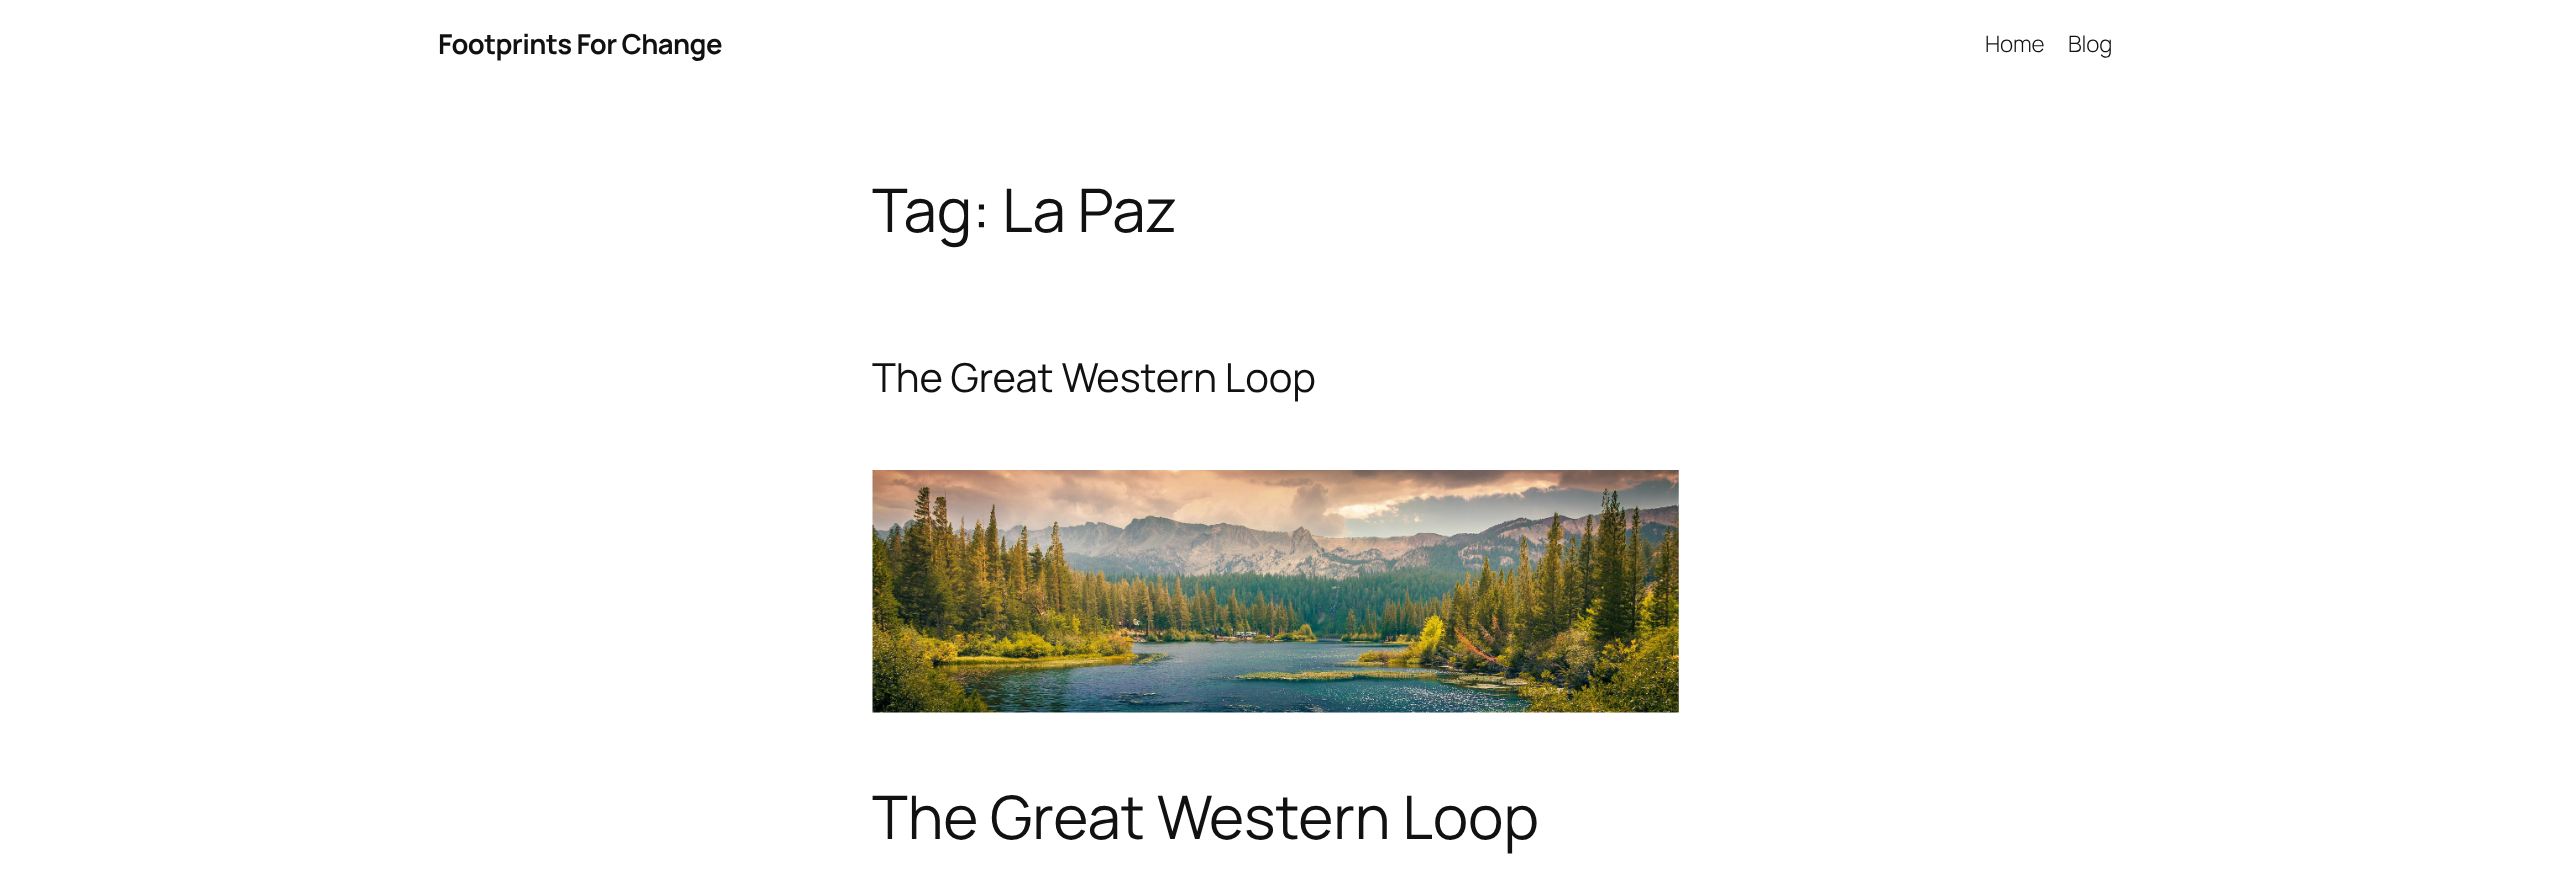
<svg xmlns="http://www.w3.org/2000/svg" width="2550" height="889">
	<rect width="100%" height="100%" fill="#FFFFFF" />
	<text x="438" y="54" font-family="Manrope" font-size="27.5" font-weight="700" letter-spacing="-0.6" fill="#111111">Footprints For Change</text>
	<g font-family="Manrope" font-size="22.5" font-weight="300" letter-spacing="-0.1" fill="#111111">
		<text x="1985" y="52">Home</text>
		<text x="2068" y="52">Blog</text>
	</g>
	<text x="872" y="232" font-family="Manrope" font-size="60" letter-spacing="-0.1" fill="#111111">Tag: La Paz</text>
	<text x="872" y="392" font-family="Manrope" font-size="40" letter-spacing="-0.1" fill="#111111">The Great Western Loop</text>
	<image x="872" y="470" width="807" height="243" href="assets/img1.png" />
	<text x="872" y="839" font-family="Manrope" font-size="60" letter-spacing="-0.1" fill="#111111">The Great Western Loop</text>
</svg>
